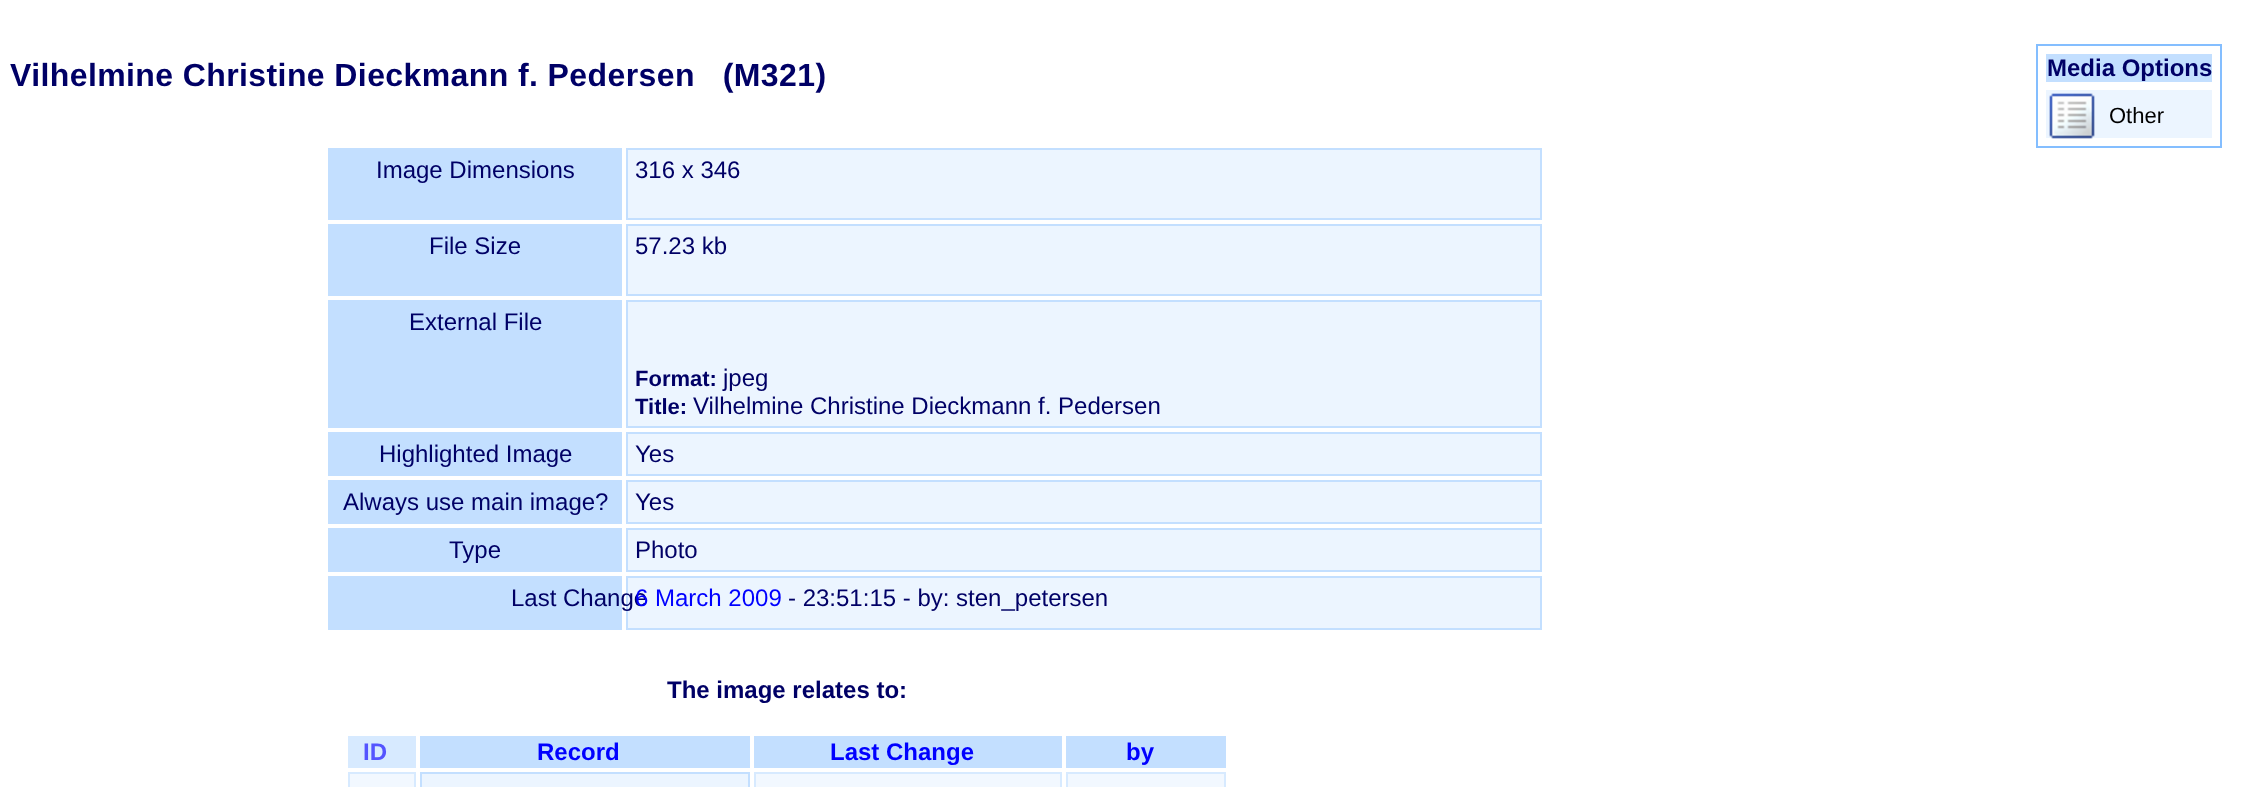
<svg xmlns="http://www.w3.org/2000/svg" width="2244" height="787">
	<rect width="100%" height="100%" fill="#FFFFFF" />
	<text x="10" y="86" font-family="Liberation Sans" font-size="32" font-weight="700" letter-spacing="0.4" fill="#000066" xml:space="preserve">Vilhelmine Christine Dieckmann f. Pedersen   (M321)</text>
	<rect x="328" y="148" width="294" height="72" fill="#C3DFFF" />
	<text x="376" y="178" font-family="Liberation Sans" font-size="24" fill="#000066">Image Dimensions</text>
	<rect x="627" y="149" width="914" height="70" fill="#ECF5FF" stroke="#C3DFFF" stroke-width="2" />
	<text x="635" y="178" font-family="Liberation Sans" font-size="24" fill="#000066">316 x 346</text>
	<rect x="328" y="224" width="294" height="72" fill="#C3DFFF" />
	<text x="429" y="254" font-family="Liberation Sans" font-size="24" fill="#000066">File Size</text>
	<rect x="627" y="225" width="914" height="70" fill="#ECF5FF" stroke="#C3DFFF" stroke-width="2" />
	<text x="635" y="254" font-family="Liberation Sans" font-size="24" fill="#000066">57.23 kb</text>
	<rect x="328" y="300" width="294" height="128" fill="#C3DFFF" />
	<text x="409" y="330" font-family="Liberation Sans" font-size="24" fill="#000066">External File</text>
	<rect x="627" y="301" width="914" height="126" fill="#ECF5FF" stroke="#C3DFFF" stroke-width="2" />
	<text x="635" y="386" font-family="Liberation Sans" font-size="22" font-weight="700" fill="#000066">Format:</text>
	<text x="723" y="386" font-family="Liberation Sans" font-size="24" fill="#000066">jpeg</text>
	<text x="635" y="414" font-family="Liberation Sans" font-size="22" font-weight="700" fill="#000066">Title:</text>
	<text x="693" y="414" font-family="Liberation Sans" font-size="24" fill="#000066">Vilhelmine Christine Dieckmann f. Pedersen</text>
	<rect x="328" y="432" width="294" height="44" fill="#C3DFFF" />
	<text x="379" y="462" font-family="Liberation Sans" font-size="24" fill="#000066">Highlighted Image</text>
	<rect x="627" y="433" width="914" height="42" fill="#ECF5FF" stroke="#C3DFFF" stroke-width="2" />
	<text x="635" y="462" font-family="Liberation Sans" font-size="24" fill="#000066">Yes</text>
	<rect x="328" y="480" width="294" height="44" fill="#C3DFFF" />
	<text x="343" y="510" font-family="Liberation Sans" font-size="24" fill="#000066">Always use main image?</text>
	<rect x="627" y="481" width="914" height="42" fill="#ECF5FF" stroke="#C3DFFF" stroke-width="2" />
	<text x="635" y="510" font-family="Liberation Sans" font-size="24" fill="#000066">Yes</text>
	<rect x="328" y="528" width="294" height="44" fill="#C3DFFF" />
	<text x="449" y="558" font-family="Liberation Sans" font-size="24" fill="#000066">Type</text>
	<rect x="627" y="529" width="914" height="42" fill="#ECF5FF" stroke="#C3DFFF" stroke-width="2" />
	<text x="635" y="558" font-family="Liberation Sans" font-size="24" fill="#000066">Photo</text>
	<rect x="328" y="576" width="294" height="54" fill="#C3DFFF" />
	<rect x="627" y="577" width="914" height="52" fill="#ECF5FF" stroke="#C3DFFF" stroke-width="2" />
	<text x="511" y="606" font-family="Liberation Sans" font-size="24" fill="#000066">Last Change</text>
	<text x="635" y="606" font-family="Liberation Sans" font-size="24" fill="#0000FF">6 March 2009</text>
	<text x="788" y="606" font-family="Liberation Sans" font-size="24" fill="#000066">- 23:51:15 - by: sten_petersen</text>
	<text x="667" y="698" font-family="Liberation Sans" font-size="24" font-weight="700" fill="#000066">The image relates to:</text>
	<rect x="348" y="736" width="68" height="32" fill="#D7EAFF" />
	<text x="363" y="760" font-family="Liberation Sans" font-size="24" font-weight="700" fill="#5454FF">ID</text>
	<rect x="420" y="736" width="330" height="32" fill="#C3DFFF" />
	<text x="537" y="760" font-family="Liberation Sans" font-size="24" font-weight="700" fill="#0000FF">Record</text>
	<rect x="754" y="736" width="308" height="32" fill="#C3DFFF" />
	<text x="830" y="760" font-family="Liberation Sans" font-size="24" font-weight="700" fill="#0000FF">Last Change</text>
	<rect x="1066" y="736" width="160" height="32" fill="#C3DFFF" />
	<text x="1126" y="760" font-family="Liberation Sans" font-size="24" font-weight="700" fill="#0000FF">by</text>
	<rect x="349" y="773" width="66" height="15" fill="#F2F8FF" stroke="#D7EAFF" stroke-width="2" />
	<rect x="421" y="773" width="328" height="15" fill="#ECF5FF" stroke="#C3DFFF" stroke-width="2" />
	<rect x="755" y="773" width="306" height="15" fill="#F2F8FF" stroke="#D7EAFF" stroke-width="2" />
	<rect x="1067" y="773" width="158" height="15" fill="#F2F8FF" stroke="#D7EAFF" stroke-width="2" />
	<rect x="2037" y="45" width="184" height="102" fill="none" stroke="#84BEFF" stroke-width="2" />
	<rect x="2046" y="54" width="166" height="28" fill="#C3DFFF" />
	<text x="2047" y="76" font-family="Liberation Sans" font-size="24" font-weight="700" fill="#000066">Media Options</text>
	<rect x="2046" y="90" width="166" height="48" fill="#ECF5FF" />
	<image x="2049" y="93" width="46" height="46" href="assets/img1.png" />
	<text x="2109" y="123" font-family="Liberation Sans" font-size="22" fill="#000000">Other</text>
</svg>
